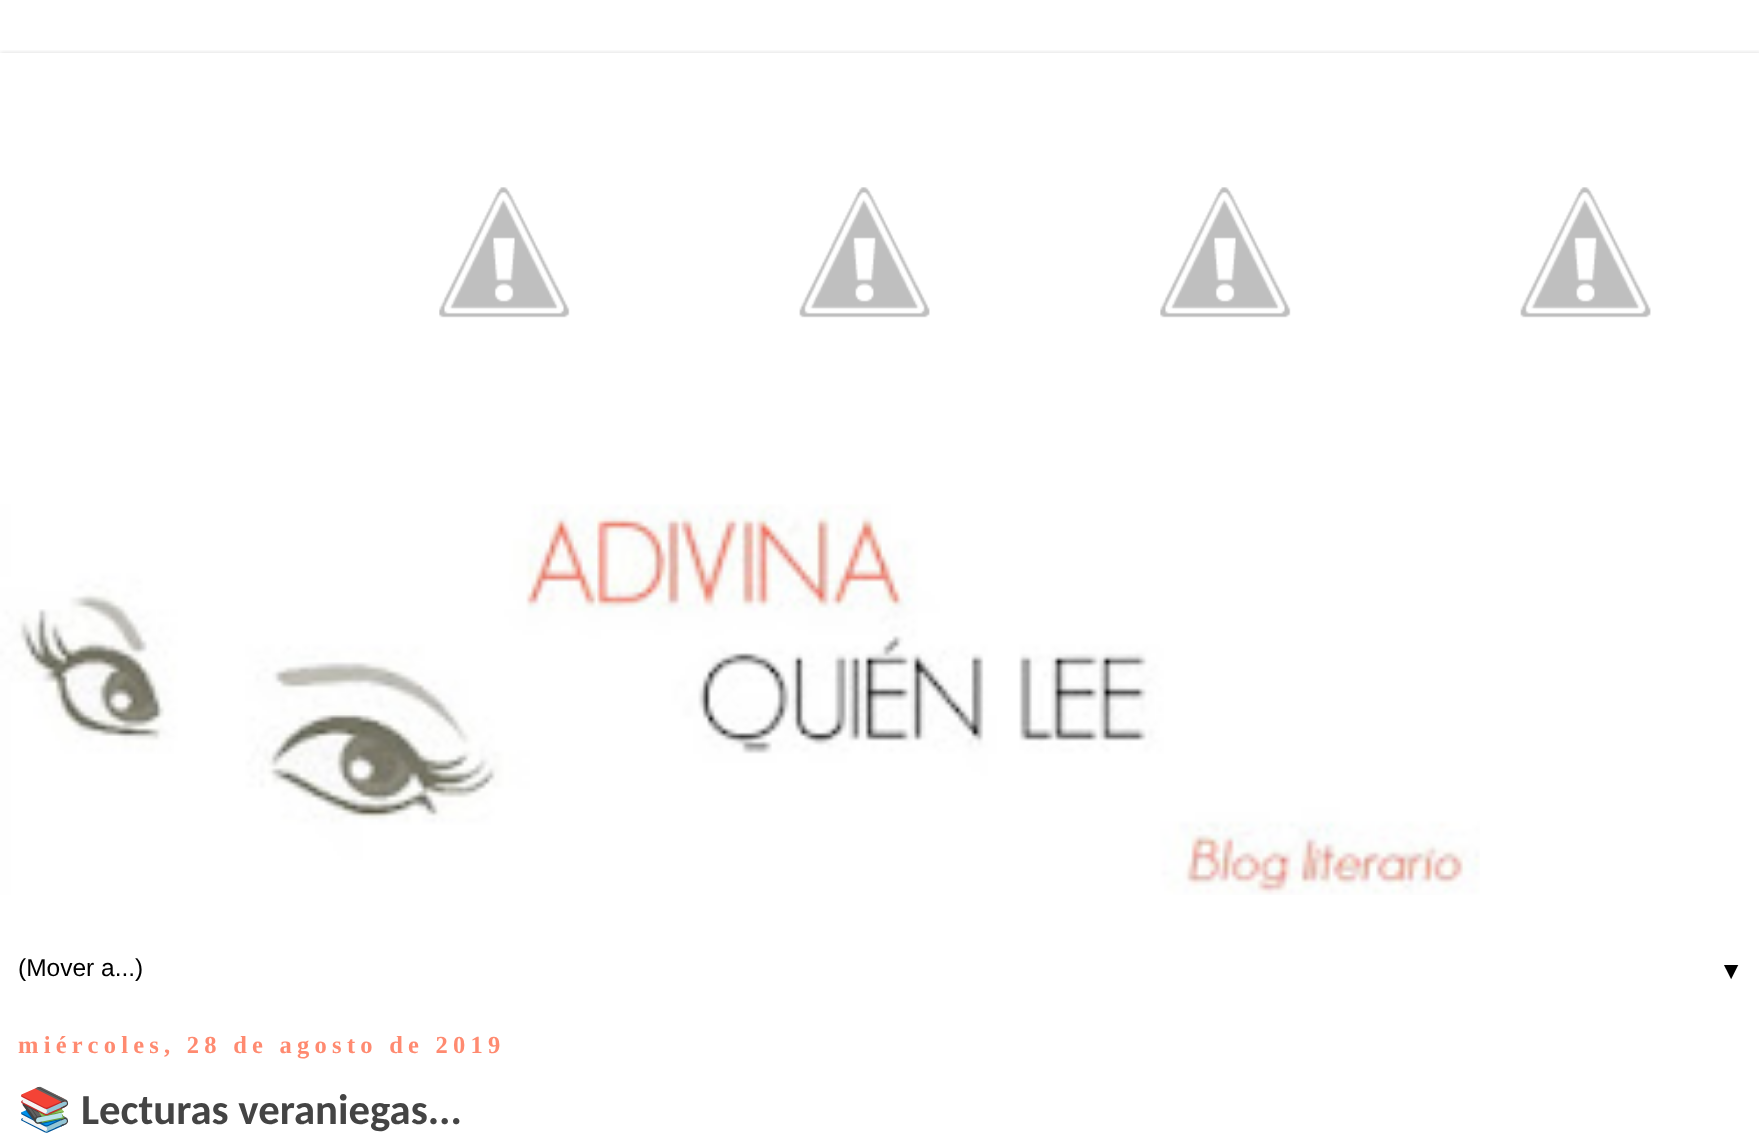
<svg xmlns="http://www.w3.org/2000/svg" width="1759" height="1141">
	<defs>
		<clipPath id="clip1"><rect x="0" y="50" width="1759" height="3" /></clipPath>
	</defs>
	<rect width="100%" height="100%" fill="#FFFFFF" />
	<g clip-path="url(#clip1)">
		<rect x="0" y="53" width="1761" height="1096" fill="#000000" fill-opacity="0.15" filter="blur(2.5px)" />
	</g>
	<image x="439" y="187" width="131" height="131" href="assets/img1.png" />
	<image x="799" y="187" width="131" height="131" href="assets/img2.png" />
	<image x="1160" y="187" width="131" height="131" href="assets/img1.png" />
	<image x="1520" y="187" width="131" height="131" href="assets/img2.png" />
	<image x="0" y="504" width="1480" height="391" href="assets/img3.png" />
	<g font-family="Liberation Sans" font-size="24.5" fill="#000000">
		<text x="18" y="976">(Mover a...)</text>
		<text x="1719" y="979">▼</text>
	</g>
	<text x="18" y="1053" font-family="Liberation Serif" font-size="24.5" font-weight="700" letter-spacing="5.25" fill="#FF8A70">miércoles, 28 de agosto de 2019</text>
	<text x="18" y="1124" font-family="Noto Color Emoji" font-size="42.75" font-weight="700" fill="#444444">📚</text>
	<text x="81" y="1124" font-family="Carlito" font-size="42.75" font-weight="700" fill="#444444">Lecturas veraniegas...</text>
</svg>
